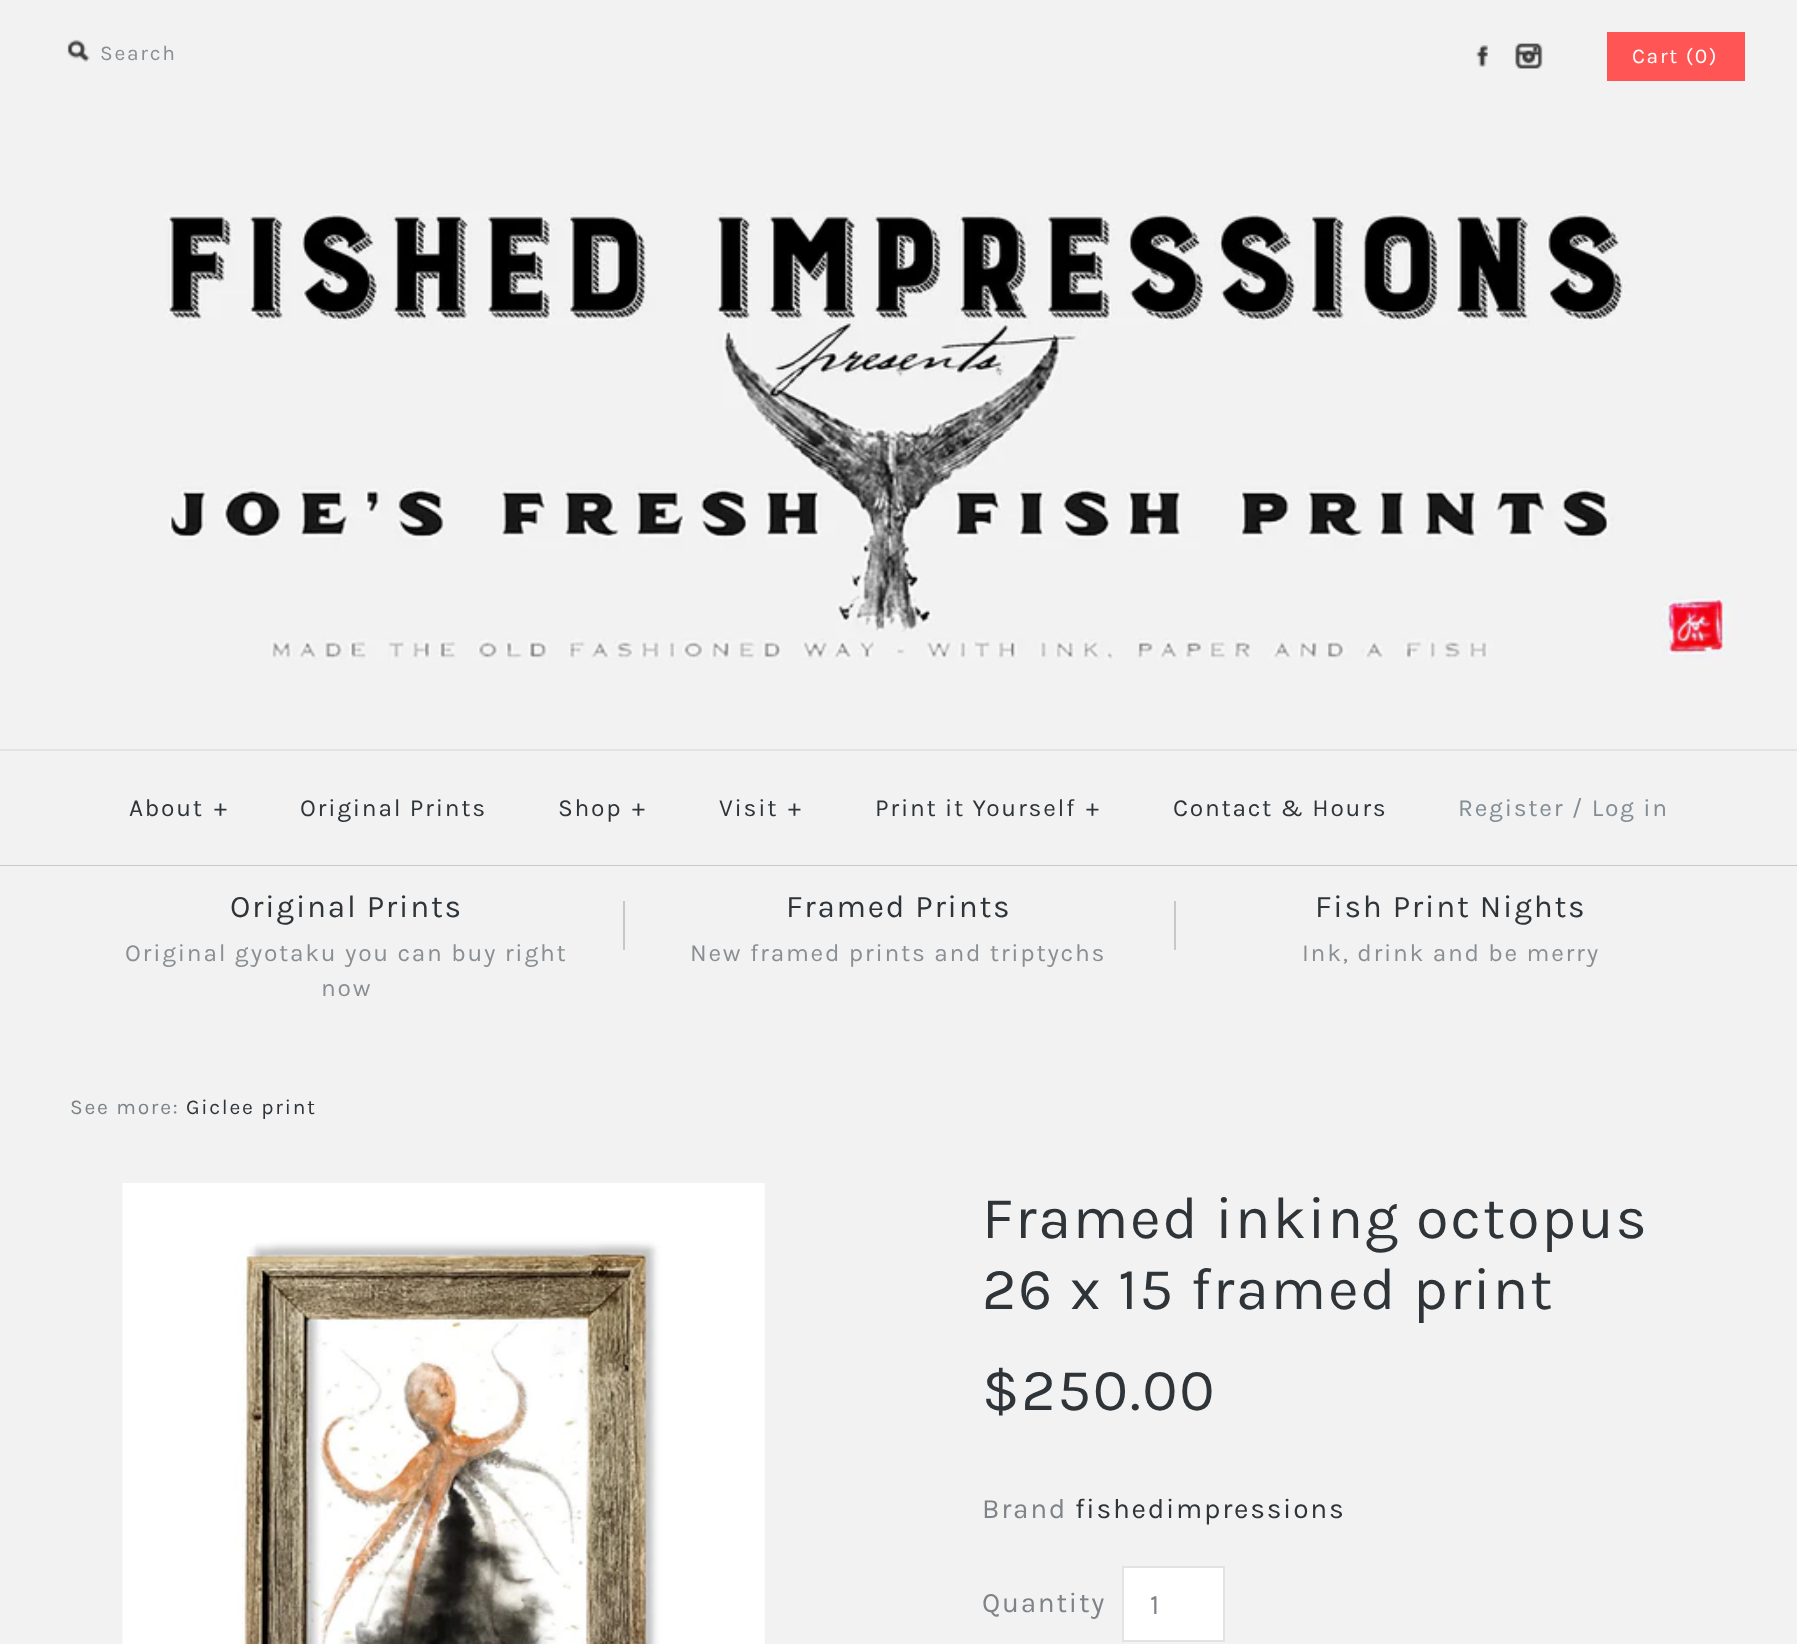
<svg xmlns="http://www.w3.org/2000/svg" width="1797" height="1644">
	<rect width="100%" height="100%" fill="#F2F2F2" />
	<image x="67" y="39" width="23" height="23" href="assets/img1.png" />
	<text x="100" y="60" font-family="Karla" font-size="21" letter-spacing="1.75" fill="#8A8F93">Search</text>
	<image x="1476" y="45" width="12" height="22" href="assets/img2.png" />
	<image x="1515" y="43" width="28" height="26" href="assets/img3.png" />
	<rect x="1607" y="32" width="138" height="49" fill="#FF5555" />
	<text x="1632" y="63" font-family="Karla" font-size="21" letter-spacing="1.75" fill="#FFFFFF">Cart (0)</text>
	<image x="165" y="212" width="1567" height="448" href="assets/img4.png" />
	<rect x="0" y="865" width="1797" height="1" fill="#C8C8C8" />
	<rect x="0" y="749" width="1797" height="2" fill="#E3E3E3" />
	<g font-family="Karla" font-size="24.5" letter-spacing="1.75" fill="#2E3438">
		<text x="129" y="816">About</text>
		<text x="214" y="816">+</text>
		<text x="300" y="816">Original Prints</text>
		<text x="558" y="816">Shop</text>
		<text x="632" y="816">+</text>
		<text x="719" y="816">Visit</text>
		<text x="788" y="816">+</text>
		<text x="875" y="816">Print it Yourself</text>
		<text x="1086" y="816">+</text>
		<text x="1173" y="816">Contact &amp; Hours</text>
	</g>
	<text x="1458" y="816" font-family="Karla" font-size="24.5" letter-spacing="1.75" fill="#828D94">Register / Log in</text>
	<text x="230" y="917" font-family="Karla" font-size="31.5" letter-spacing="1.75" fill="#2E3438">Original Prints</text>
	<g font-family="Karla" font-size="24.5" letter-spacing="1.75" fill="#8A8F93">
		<text x="125" y="961">Original gyotaku you can buy right</text>
		<text x="321" y="996">now</text>
	</g>
	<rect x="623" y="901" width="2" height="49" fill="#C8C8C8" />
	<text x="786" y="917" font-family="Karla" font-size="31.5" letter-spacing="1.75" fill="#2E3438">Framed Prints</text>
	<text x="690" y="961" font-family="Karla" font-size="24.5" letter-spacing="1.75" fill="#8A8F93">New framed prints and triptychs</text>
	<rect x="1174" y="901" width="2" height="49" fill="#C8C8C8" />
	<text x="1315" y="917" font-family="Karla" font-size="31.5" letter-spacing="1.75" fill="#2E3438">Fish Print Nights</text>
	<text x="1302" y="961" font-family="Karla" font-size="24.5" letter-spacing="1.75" fill="#8A8F93">Ink, drink and be merry</text>
	<text x="70" y="1114" font-family="Karla" font-size="21" letter-spacing="1.75" fill="#7D8387">See more:</text>
	<text x="186" y="1114" font-family="Karla" font-size="21" letter-spacing="1.75" fill="#2E3438">Giclee print</text>
	<image x="122" y="1183" width="643" height="461" href="assets/img5.png" />
	<g font-family="Karla" font-size="59.5" letter-spacing="1.75" fill="#2E3438">
		<text x="982" y="1238">Framed inking octopus</text>
		<text x="982" y="1309">26 x 15 framed print</text>
		<text x="982" y="1410">$250.00</text>
	</g>
	<text x="982" y="1518" font-family="Karla" font-size="28" letter-spacing="1.75" fill="#7D8387">Brand</text>
	<text x="1075" y="1518" font-family="Karla" font-size="28" letter-spacing="1.75" fill="#2E3438">fishedimpressions</text>
	<text x="982" y="1612" font-family="Karla" font-size="28" letter-spacing="1.75" fill="#7D8387">Quantity</text>
	<rect x="1123" y="1567" width="101" height="74" fill="#FFFFFF" stroke="#E3E3E3" stroke-width="2" />
	<text x="1150" y="1614" font-family="Karla" font-size="28" letter-spacing="1.75" fill="#7D8387">1</text>
</svg>
